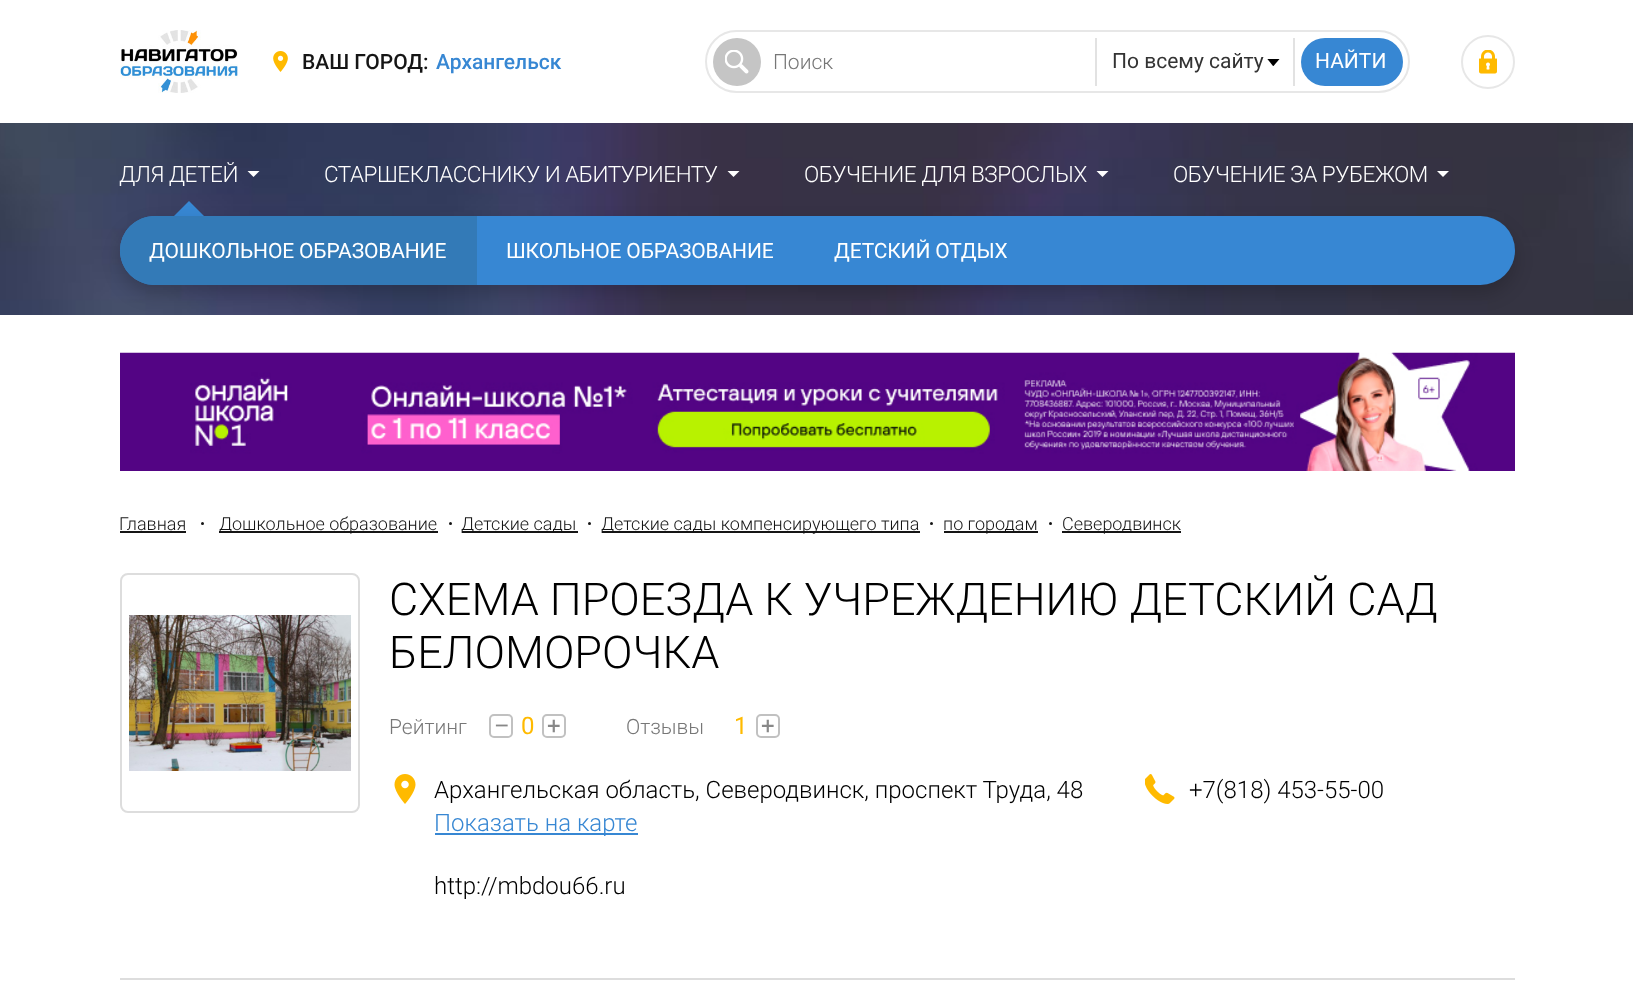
<svg xmlns="http://www.w3.org/2000/svg" width="1633" height="991">
	<defs>
		<clipPath id="clip1"><rect x="1266" y="59" width="27" height="7" /></clipPath>
	</defs>
	<rect width="100%" height="100%" fill="#FFFFFF" />
	<image x="120" y="30" width="118" height="63" href="assets/img1.png" />
	<image x="273" y="51" width="15" height="21" href="assets/img2.png" />
	<text x="302" y="69" font-family="Roboto" font-size="21" font-weight="500" fill="#151515">ВАШ ГОРОД:</text>
	<text x="436" y="69" font-family="Roboto" font-size="21" font-weight="500" fill="#3787D3">Архангельск</text>
	<rect x="706" y="31" width="703" height="61" rx="30.5" fill="none" stroke="#E7E7E7" stroke-width="2" />
	<circle cx="737" cy="62" r="24" fill="#C5C5C5" />
	<image x="725" y="50" width="24" height="24" href="assets/img3.png" />
	<text x="773" y="69" font-family="Roboto" font-size="21" font-weight="300" fill="#777777">Поиск</text>
	<rect x="1293" y="38" width="2" height="48" fill="#E2E2E2" />
	<rect x="1095" y="38" width="2" height="48" fill="#E2E2E2" />
	<g clip-path="url(#clip1)">
		<path d="M1273.5 66L1279.5 59L1279 58.5H1267L1273 66Z" fill="#000000" fill-rule="evenodd" />
	</g>
	<text x="1112" y="68" font-family="Roboto" font-size="21" fill="#333333">По всему сайту</text>
	<rect x="1301" y="38" width="102" height="48" rx="24" fill="#3787D3" />
	<text x="1315" y="68" font-family="Roboto" font-size="21" fill="#FFFFFF">НАЙТИ</text>
	<image x="1479" y="50" width="18" height="24" href="assets/img4.png" />
	<circle cx="1488" cy="62" r="26" fill="none" stroke="#E7E7E7" stroke-width="2" />
	<image x="0" y="123" width="1633" height="192" href="assets/img5.png" />
	<text x="119" y="182" font-family="Roboto" font-size="22.5" font-weight="300" letter-spacing="-0.45" fill="#FFFFFF">ДЛЯ ДЕТЕЙ</text>
	<path d="M247.5 171H259.5L253.5 177Z" fill="#FFFFFF" />
	<path d="M204 216H174L189 201Z" fill="#3787D3" />
	<rect x="120" y="225" width="1395" height="69" rx="34.5" fill="#000000" fill-opacity="0.18" filter="blur(9px)" />
	<rect x="120" y="216" width="1395" height="69" rx="34.5" fill="#3787D3" />
	<path d="M154.5 216H477V285H154.5C135.5 285 120 269.5 120 250.5C120 231.5 135.5 216 154.5 216Z" fill="#337AB7" />
	<g font-family="Roboto" font-size="21" letter-spacing="-0.15" fill="#FFFFFF">
		<text x="149" y="258">ДОШКОЛЬНОЕ ОБРАЗОВАНИЕ</text>
		<text x="506" y="258">ШКОЛЬНОЕ ОБРАЗОВАНИЕ</text>
		<text x="834" y="258">ДЕТСКИЙ ОТДЫХ</text>
	</g>
	<text x="324" y="182" font-family="Roboto" font-size="22.5" font-weight="300" letter-spacing="-0.45" fill="#FFFFFF">СТАРШЕКЛАССНИКУ И АБИТУРИЕНТУ</text>
	<path d="M727.5 171H739.5L733.5 177Z" fill="#FFFFFF" />
	<text x="804" y="182" font-family="Roboto" font-size="22.5" font-weight="300" letter-spacing="-0.45" fill="#FFFFFF">ОБУЧЕНИЕ ДЛЯ ВЗРОСЛЫХ</text>
	<path d="M1096.5 171H1108.5L1102.5 177Z" fill="#FFFFFF" />
	<text x="1173" y="182" font-family="Roboto" font-size="22.5" font-weight="300" letter-spacing="-0.45" fill="#FFFFFF">ОБУЧЕНИЕ ЗА РУБЕЖОМ</text>
	<path d="M1437 171H1449L1443 177Z" fill="#FFFFFF" />
	<image x="120" y="352" width="1395" height="119" href="assets/img6.png" />
	<text x="119" y="530" font-family="Roboto" font-size="18" font-weight="300" fill="#151515">Главная</text>
	<rect x="120" y="531" width="66" height="2" fill="#151515" />
	<circle cx="202.5" cy="523.5" r="1.5" fill="#151515" />
	<rect x="219" y="531" width="219" height="2" fill="#151515" />
	<text x="219" y="530" font-family="Roboto" font-size="18" font-weight="300" fill="#151515">Дошкольное образование</text>
	<circle cx="450.5" cy="523.5" r="1.5" fill="#151515" />
	<rect x="462" y="531" width="116" height="2" fill="#151515" />
	<text x="461" y="530" font-family="Roboto" font-size="18" font-weight="300" fill="#151515">Детские сады</text>
	<circle cx="589.5" cy="523.5" r="1.5" fill="#151515" />
	<rect x="602" y="531" width="318" height="2" fill="#151515" />
	<text x="601" y="530" font-family="Roboto" font-size="18" font-weight="300" fill="#151515">Детские сады компенсирующего типа</text>
	<circle cx="931.5" cy="523.5" r="1.5" fill="#151515" />
	<rect x="944" y="531" width="94" height="2" fill="#151515" />
	<text x="943" y="530" font-family="Roboto" font-size="18" font-weight="300" fill="#151515">по городам</text>
	<circle cx="1050.5" cy="523.5" r="1.5" fill="#151515" />
	<rect x="1062" y="531" width="119" height="2" fill="#151515" />
	<text x="1062" y="530" font-family="Roboto" font-size="18" font-weight="300" fill="#151515">Северодвинск</text>
	<rect x="121" y="574" width="238" height="238" rx="7" fill="none" stroke="#DDDDDD" stroke-width="2" />
	<image x="129" y="615" width="222" height="156" href="assets/img7.png" />
	<g font-family="Roboto" font-size="45" font-weight="300" fill="#000000">
		<text x="389" y="615">СХЕМА ПРОЕЗДА К УЧРЕЖДЕНИЮ ДЕТСКИЙ САД</text>
		<text x="389" y="668">БЕЛОМОРОЧКА</text>
	</g>
	<text x="389" y="734" font-family="Roboto" font-size="21" font-weight="300" fill="#777777">Рейтинг</text>
	<rect x="490" y="715" width="22" height="22" rx="4" fill="none" stroke="#C1C1C1" stroke-width="2" />
	<text x="494" y="734" font-family="Roboto" font-size="24" fill="#888888">–</text>
	<text x="521" y="734" font-family="Roboto" font-size="24" fill="#FFBA00">0</text>
	<rect x="543" y="715" width="22" height="22" rx="4" fill="none" stroke="#C1C1C1" stroke-width="2" />
	<text x="547" y="734" font-family="Roboto" font-size="24" fill="#888888">+</text>
	<text x="626" y="734" font-family="Roboto" font-size="21" font-weight="300" fill="#777777">Отзывы</text>
	<text x="734" y="734" font-family="Roboto" font-size="24" fill="#FFBA00">1</text>
	<rect x="757" y="715" width="22" height="22" rx="4" fill="none" stroke="#C1C1C1" stroke-width="2" />
	<text x="761" y="734" font-family="Roboto" font-size="24" fill="#888888">+</text>
	<image x="394" y="774" width="22" height="30" href="assets/img8.png" />
	<text x="434" y="798" font-family="Roboto" font-size="24" font-weight="300" fill="#000000">Архангельская область, Северодвинск, проспект Труда, 48</text>
	<rect x="435" y="833" width="203" height="2" fill="#3787D3" />
	<text x="434" y="831" font-family="Roboto" font-size="24" font-weight="300" fill="#3787D3">Показать на карте</text>
	<image x="1145" y="774" width="30" height="30" href="assets/img9.png" />
	<g font-family="Roboto" font-size="24" font-weight="300" fill="#000000">
		<text x="1189" y="798">+7(818) 453-55-00</text>
		<text x="434" y="894">http://mbdou66.ru</text>
	</g>
	<rect x="120" y="978" width="1395" height="2" fill="#DDDDDD" />
</svg>
